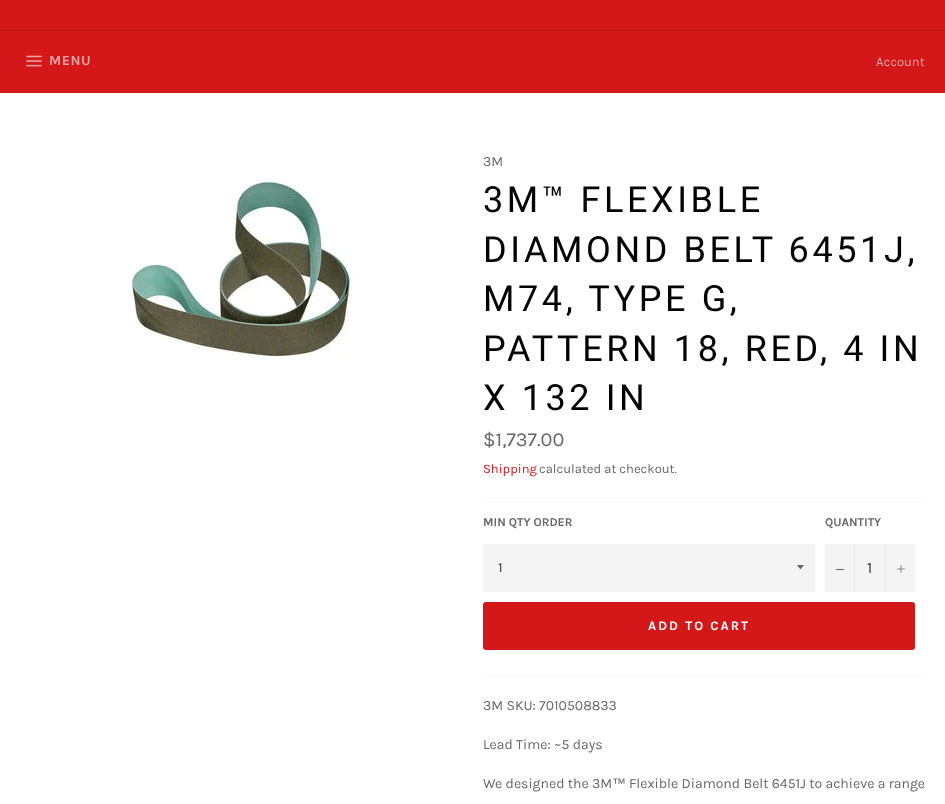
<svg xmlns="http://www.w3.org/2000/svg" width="945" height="804">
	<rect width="100%" height="100%" fill="#D41819" />
	<rect x="0" y="30" width="945" height="1" fill="#BD1516" />
	<image x="26" y="55" width="16" height="12" href="assets/img1.png" />
	<text x="49" y="65" font-family="Karla" font-size="14" font-weight="700" letter-spacing="0.5" fill="#EEA3A3">MENU</text>
	<text x="876" y="66" font-family="Karla" font-size="13" fill="#EEA3A3">Account</text>
	<rect x="0" y="93" width="945" height="711" fill="#FFFFFF" />
	<image x="131" y="176" width="223" height="183" href="assets/img2.png" />
	<text x="483" y="166" font-family="Karla" font-size="14" fill="#666666">3M</text>
	<g font-family="Roboto" font-size="36" letter-spacing="3.6" fill="#030303">
		<text x="483" y="212">3M™ FLEXIBLE</text>
		<text x="483" y="262">DIAMOND BELT 6451J,</text>
		<text x="483" y="311">M74, TYPE G,</text>
		<text x="483" y="361">PATTERN 18, RED, 4 IN</text>
		<text x="483" y="410">X 132 IN</text>
	</g>
	<text x="483" y="446" font-family="Karla" font-size="20" fill="#666666">$1,737.00</text>
	<text x="483" y="473" font-family="Karla" font-size="13" fill="#D41819">Shipping</text>
	<text x="539" y="473" font-family="Karla" font-size="13" fill="#666666">calculated at checkout.</text>
	<rect x="483" y="498" width="442" height="1" fill="#F7F7F7" />
	<text x="483" y="526" font-family="Karla" font-size="12" font-weight="700" fill="#666666">MIN QTY ORDER</text>
	<rect x="483" y="544" width="332" height="48" fill="#F4F4F4" />
	<path d="M797 565C801.5 570.5 799.5 570.5 804 565Z" fill="#666666" />
	<text x="498" y="572" font-family="Karla" font-size="14" fill="#333333">1</text>
	<text x="825" y="526" font-family="Karla" font-size="12" font-weight="700" fill="#666666">QUANTITY</text>
	<rect x="825" y="544" width="90" height="48" fill="#F4F4F4" />
	<rect x="854" y="544" width="1" height="48" fill="#E7E7E7" />
	<rect x="836" y="569" width="8" height="1" fill="#666666" />
	<text x="867" y="573" font-family="Karla" font-size="16" fill="#333333">1</text>
	<rect x="885" y="544" width="1" height="48" fill="#E7E7E7" />
	<image x="897" y="565" width="8" height="8" href="assets/img3.png" />
	<rect x="483" y="602" width="432" height="48" rx="3" fill="#D41819" />
	<text x="648" y="630" font-family="Karla" font-size="13" font-weight="700" letter-spacing="2" fill="#FFFFFF">ADD TO CART</text>
	<rect x="483" y="675" width="442" height="1" fill="#F7F7F7" />
	<g font-family="Karla" font-size="14" fill="#666666">
		<text x="483" y="710">3M SKU: 7010508833</text>
		<text x="483" y="749">Lead Time: ~5 days</text>
		<text x="483" y="788">We designed the 3M</text>
	</g>
	<text x="612" y="788" font-family="Liberation Sans" font-size="14" fill="#666666">™</text>
	<text x="629" y="788" font-family="Karla" font-size="14" fill="#666666">Flexible Diamond Belt 6451J to achieve a range</text>
</svg>
